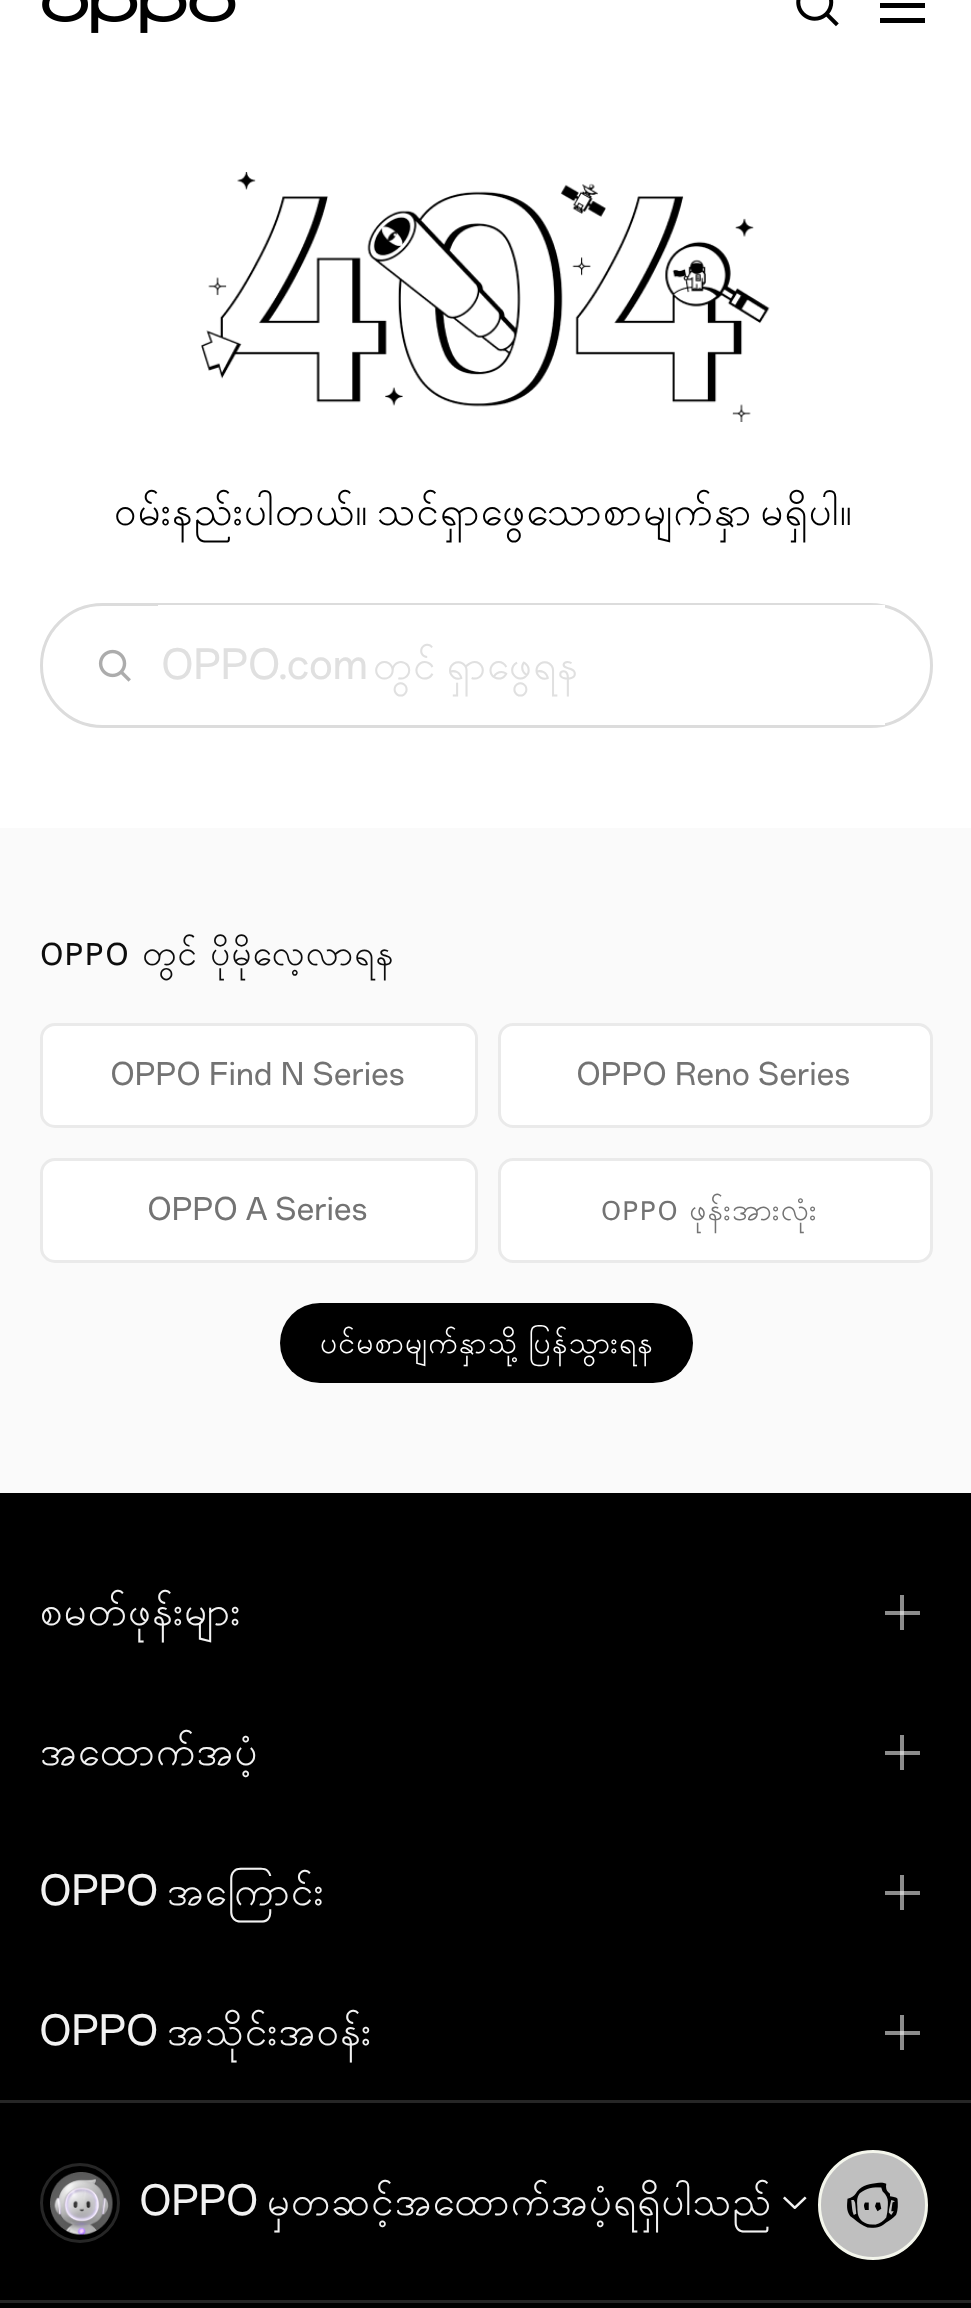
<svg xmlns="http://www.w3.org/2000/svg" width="971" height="2308">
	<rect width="100%" height="100%" fill="#FFFFFF" />
	<image x="42" y="0" width="194" height="33" href="assets/img1.png" />
	<image x="796" y="0" width="43" height="27" href="assets/img2.png" />
	<rect x="880" y="3" width="45" height="5" fill="#000000" />
	<rect x="880" y="18" width="45" height="5" fill="#000000" />
	<image x="201" y="172" width="569" height="250" href="assets/img3.png" />
	<text x="114" y="525" word-spacing="-8" font-family="Padauk" font-size="40" letter-spacing="1.25" fill="#000000">ဝမ်းနည်းပါတယ်။ သင်ရှာဖွေသောစာမျက်နှာ မရှိပါ။</text>
	<rect x="41.5" y="604.5" width="890" height="122" rx="61" fill="none" stroke="#DCDCDC" stroke-width="3" />
	<image x="98" y="649" width="33" height="33" href="assets/img4.png" />
	<rect x="158" y="605" width="727" height="120" fill="#FFFFFF" />
	<text x="162" y="679" font-family="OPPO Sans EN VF" font-size="40" letter-spacing="1.25" fill="#E0E0E0">OPPO.com</text>
	<text x="373" y="679" word-spacing="-6" font-family="Padauk" font-size="40" letter-spacing="1.25" fill="#E0E0E0">တွင် ရှာဖွေရန</text>
	<rect x="0" y="828" width="971" height="665" fill="#FAFAFA" />
	<text x="40" y="965" word-spacing="-2" font-family="Padauk" font-size="35" letter-spacing="1.25" fill="#0D0D0D">OPPO တွင် ပိုမိုလေ့လာရန</text>
	<rect x="41.5" y="1024.5" width="435" height="102" rx="13.5" fill="#FFFFFF" stroke="#EAEAEA" stroke-width="3" />
	<text x="111" y="1085" font-family="OPPO Sans EN VF" font-size="30" letter-spacing="1.25" fill="#737373">OPPO Find N Series</text>
	<rect x="499.5" y="1024.5" width="432" height="102" rx="13.5" fill="#FFFFFF" stroke="#EAEAEA" stroke-width="3" />
	<text x="577" y="1085" font-family="OPPO Sans EN VF" font-size="30" letter-spacing="1.25" fill="#737373">OPPO Reno Series</text>
	<rect x="41.5" y="1159.5" width="435" height="102" rx="13.5" fill="#FFFFFF" stroke="#EAEAEA" stroke-width="3" />
	<text x="148" y="1220" font-family="OPPO Sans EN VF" font-size="30" letter-spacing="1.25" fill="#737373">OPPO A Series</text>
	<rect x="499.5" y="1159.5" width="432" height="102" rx="13.5" fill="#FFFFFF" stroke="#EAEAEA" stroke-width="3" />
	<text x="601" y="1220" word-spacing="-2" font-family="Padauk" font-size="30" letter-spacing="1.25" fill="#737373">OPPO ဖုန်းအားလုံး</text>
	<rect x="280" y="1303" width="413" height="80" rx="40" fill="#000000" />
	<text x="320" y="1353" word-spacing="-2" font-family="Padauk" font-size="30" letter-spacing="1.25" fill="#FFFFFF">ပင်မစာမျက်နှာသို့ ပြန်သွားရန</text>
	<rect x="0" y="1493" width="971" height="815" fill="#000000" />
	<rect x="900" y="2015" width="4" height="35" fill="#8C8C8C" />
	<rect x="900" y="1875" width="4" height="35" fill="#8C8C8C" />
	<rect x="900" y="1735" width="4" height="35" fill="#8C8C8C" />
	<rect x="900" y="1595" width="4" height="35" fill="#8C8C8C" />
	<text x="40" y="1625" font-family="Padauk" font-size="40" letter-spacing="1.25" fill="#F2F2F2">စမတ်ဖုန်းများ</text>
	<rect x="885" y="1611" width="35" height="4" fill="#8C8C8C" />
	<rect x="900" y="1611" width="4" height="4" fill="#CBCBCB" />
	<text x="40" y="1765" font-family="Padauk" font-size="40" letter-spacing="1.25" fill="#F2F2F2">အထောက်အပံ့</text>
	<rect x="885" y="1751" width="35" height="4" fill="#8C8C8C" />
	<rect x="900" y="1751" width="4" height="4" fill="#CBCBCB" />
	<text x="40" y="1905" font-family="OPPO Sans EN VF" font-size="40" letter-spacing="1.25" fill="#F2F2F2">OPPO</text>
	<text x="167" y="1905" font-family="Padauk" font-size="40" letter-spacing="1.25" fill="#F2F2F2">အကြောင်း</text>
	<rect x="885" y="1891" width="35" height="4" fill="#8C8C8C" />
	<rect x="900" y="1891" width="4" height="4" fill="#CBCBCB" />
	<text x="40" y="2045" font-family="OPPO Sans EN VF" font-size="40" letter-spacing="1.25" fill="#F2F2F2">OPPO</text>
	<text x="167" y="2045" font-family="Padauk" font-size="40" letter-spacing="1.25" fill="#F2F2F2">အသိုင်းအဝန်း</text>
	<rect x="885" y="2031" width="35" height="4" fill="#8C8C8C" />
	<rect x="900" y="2031" width="4" height="4" fill="#CBCBCB" />
	<rect x="0" y="2100" width="971" height="3" fill="#262626" />
	<circle cx="80" cy="2203" r="38.5" fill="none" stroke="#262626" stroke-width="3" />
	<image x="50" y="2172" width="63" height="63" href="assets/img5.png" />
	<text x="140" y="2215" font-family="OPPO Sans EN VF" font-size="40" letter-spacing="1.25" fill="#F2F2F2">OPPO</text>
	<text x="267" y="2215" font-family="Padauk" font-size="40" letter-spacing="1.25" fill="#F2F2F2">မှတဆင့်အထောက်အပံ့ရရှိပါသည်</text>
	<image x="783" y="2196" width="24" height="13" href="assets/img6.png" />
	<rect x="0" y="2300" width="971" height="3" fill="#262626" />
	<circle cx="873" cy="2205" r="53.5" fill="#BFBFBF" stroke="#F4F6EC" stroke-width="3" />
	<image x="847" y="2182" width="51" height="46" href="assets/img7.png" />
</svg>
